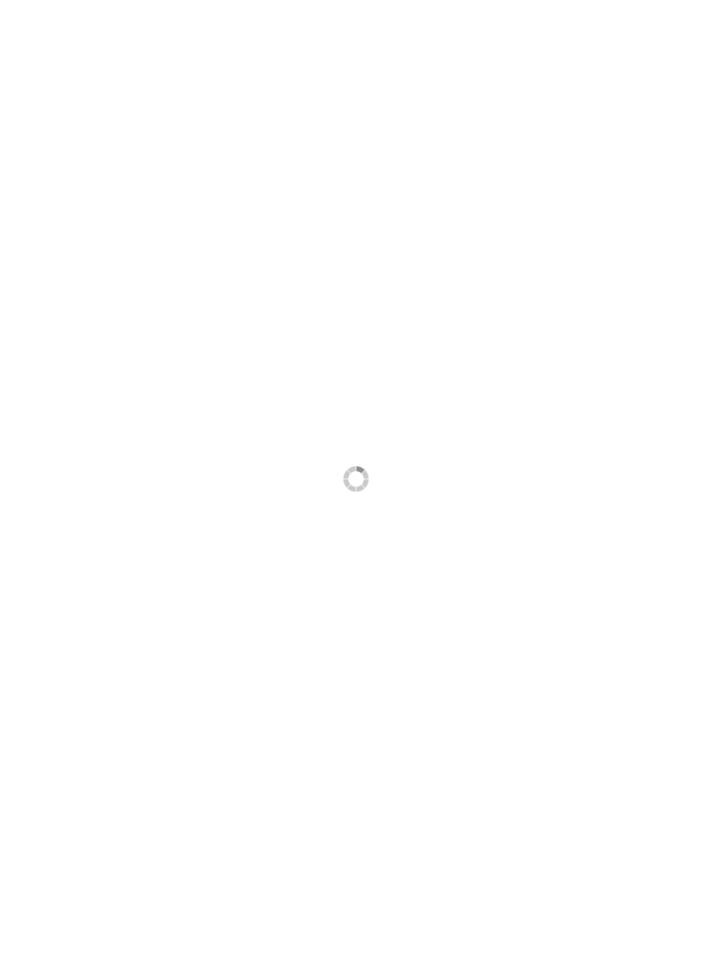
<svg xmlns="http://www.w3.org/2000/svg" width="711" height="966">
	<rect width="100%" height="100%" fill="#FFFFFF" />
	<image x="343" y="466" width="26" height="26" href="assets/img1.png" />
</svg>
